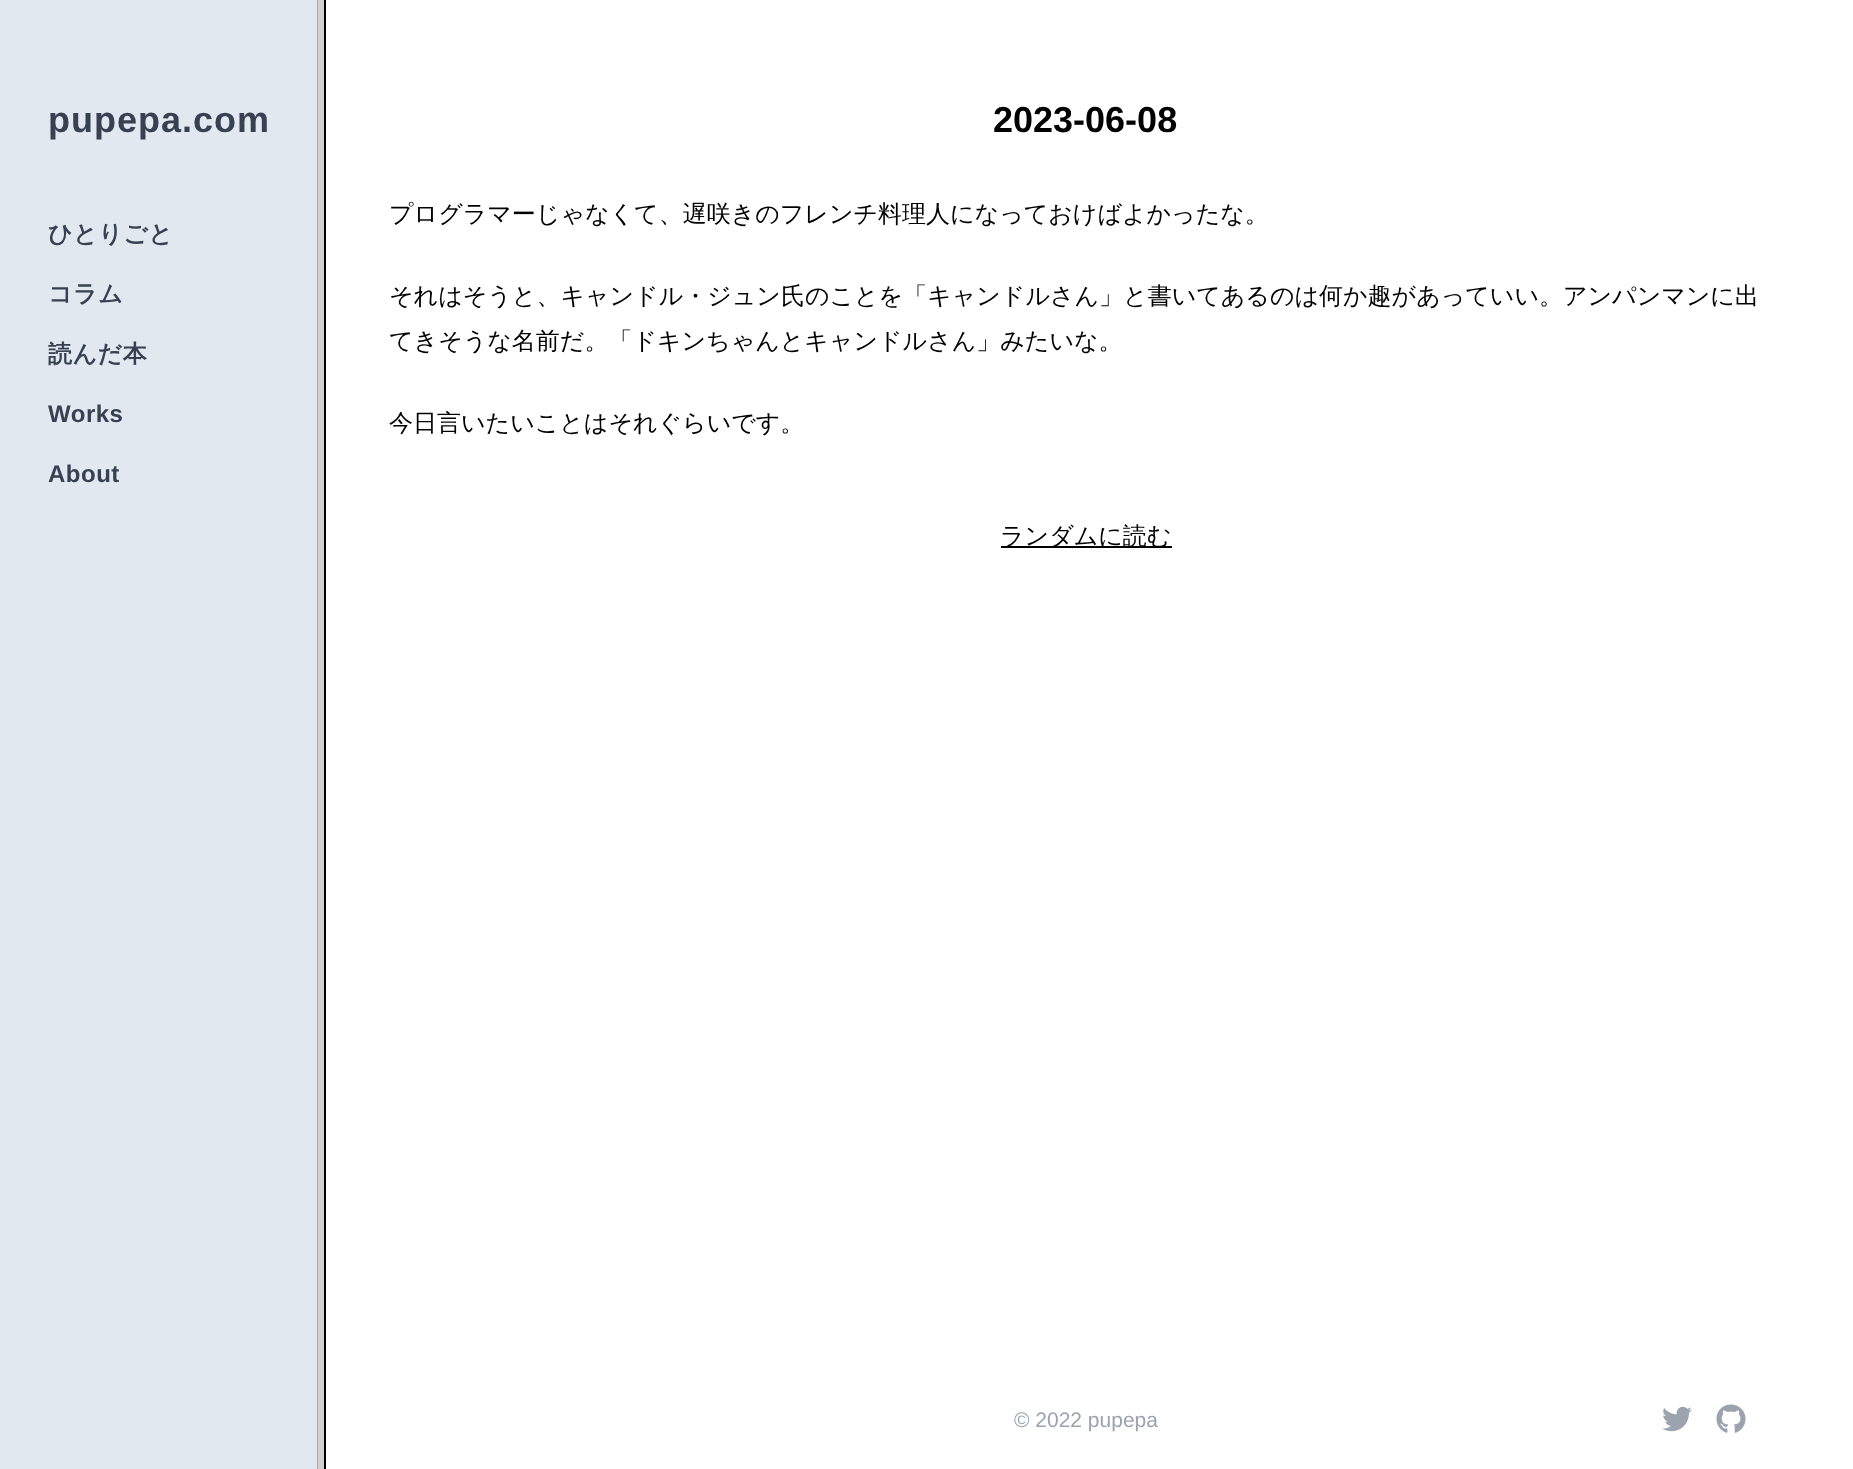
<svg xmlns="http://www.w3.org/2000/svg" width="1853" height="1469">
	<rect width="100%" height="100%" fill="#FFFFFF" />
	<rect x="-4.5" y="-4.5" width="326" height="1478" fill="none" stroke="#000000" stroke-width="9" />
	<rect x="-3" y="-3" width="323" height="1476" fill="none" stroke="#D0D0D0" stroke-width="8" />
	<rect x="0" y="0" width="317" height="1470" fill="none" stroke="#AAAAAA" stroke-width="2" />
	<rect x="0" y="0" width="317" height="1469" fill="#E2E8F0" />
	<text x="48" y="132" font-family="Liberation Sans" font-size="36" font-weight="700" letter-spacing="1" fill="#374151">pupepa.com</text>
	<g font-family="WenQuanYi Zen Hei" font-size="24" font-weight="700" letter-spacing="0.5" fill="#374151">
		<text x="48" y="242">ひとりごと</text>
		<text x="48" y="302">コラム</text>
		<text x="48" y="362">読んだ本</text>
	</g>
	<g font-family="Liberation Sans" font-size="24" font-weight="700" letter-spacing="0.5" fill="#374151">
		<text x="48" y="422">Works</text>
		<text x="48" y="482">About</text>
	</g>
	<text x="993" y="132" font-family="Liberation Sans" font-size="36" font-weight="700" fill="#000000">2023-06-08</text>
	<g font-family="WenQuanYi Zen Hei" font-size="24" font-weight="500" fill="#000000">
		<text x="389" y="222">プログラマーじゃなくて、遅咲きのフレンチ料理人になっておけばよかったな。</text>
		<text x="389" y="304">それはそうと、キャンドル・ジュン氏のことを「キャンドルさん」と書いてあるのは何か趣があっていい。アンパンマンに出</text>
		<text x="389" y="349">てきそうな名前だ。「ドキンちゃんとキャンドルさん」みたいな。</text>
		<text x="389" y="431">今日言いたいことはそれぐらいです。</text>
	</g>
	<rect x="1001" y="546" width="171" height="2" fill="#000000" />
	<text x="1000" y="544" font-family="WenQuanYi Zen Hei" font-size="24" font-weight="500" fill="#000000">ランダムに読む</text>
	<text x="1014" y="1427" font-family="Liberation Sans" font-size="21" fill="#9CA3AF">© 2022 pupepa</text>
	<image x="1662" y="1406" width="30" height="26" href="assets/img1.png" />
	<image x="1716" y="1404" width="30" height="29" href="assets/img2.png" />
</svg>
